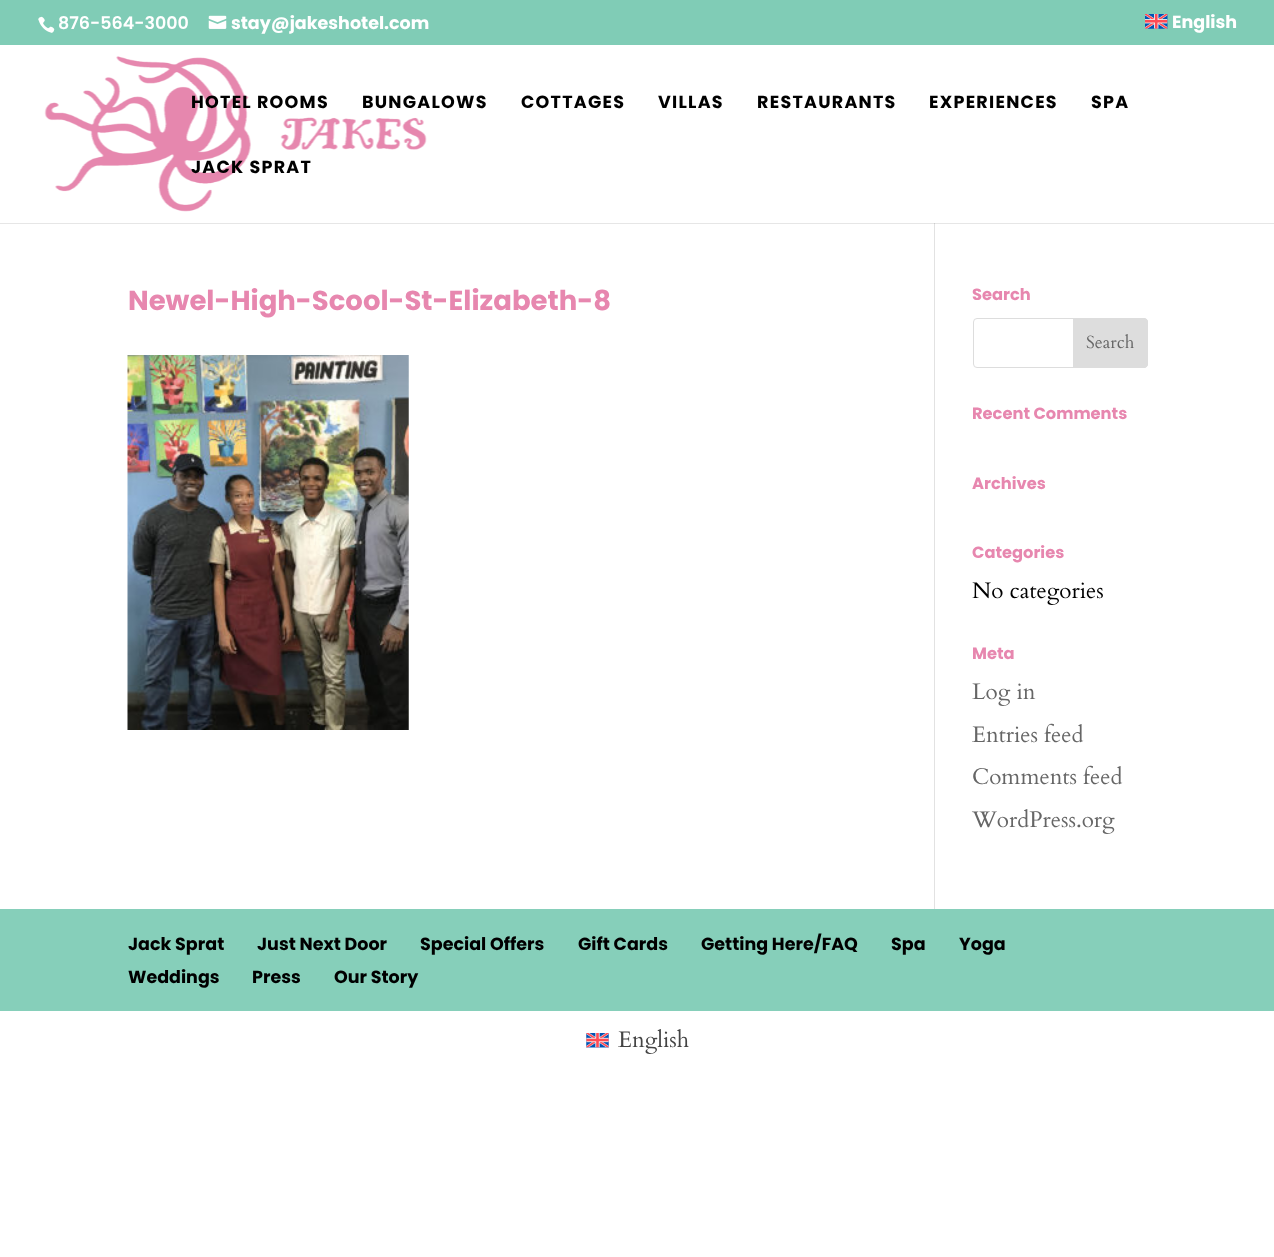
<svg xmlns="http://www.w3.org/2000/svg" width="1274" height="1257">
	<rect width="100%" height="100%" fill="#FFFFFF" />
	<rect x="0" y="223" width="1274" height="1" fill="#E6E6E6" />
	<rect x="0" y="0" width="1274" height="45" fill="#80CCB6" />
	<image x="38" y="16" width="17" height="17" href="assets/img1.png" />
	<text x="58" y="29" font-family="Poppins" font-size="17.5" font-weight="600" fill="#FFFFFF">876-564-3000</text>
	<image x="208" y="15" width="19" height="14" href="assets/img2.png" />
	<text x="231" y="29" font-family="Poppins" font-size="17.5" font-weight="700" fill="#FFFFFF">stay@jakeshotel.com</text>
	<image x="1145" y="14" width="23" height="15" href="assets/img3.png" />
	<text x="1172" y="28" font-family="Poppins" font-size="17.5" font-weight="700" fill="#FFFFFF">English</text>
	<rect x="934" y="222" width="1" height="2" fill="#CBCBCB" />
	<rect x="934" y="222" width="1" height="1" fill="#FFFFFF" />
	<image x="44" y="56" width="383" height="156" href="assets/img4.png" />
	<g font-family="Poppins" font-size="17.5" font-weight="700" letter-spacing="1.25" fill="#000000">
		<text x="191" y="108">HOTEL ROOMS</text>
		<text x="362" y="108">BUNGALOWS</text>
		<text x="521" y="108">COTTAGES</text>
		<text x="658" y="108">VILLAS</text>
		<text x="757" y="108">RESTAURANTS</text>
		<text x="929" y="108">EXPERIENCES</text>
		<text x="1091" y="108">SPA</text>
		<text x="191" y="173">JACK SPRAT</text>
	</g>
	<rect x="934" y="224" width="1" height="685" fill="#E2E2E2" />
	<text x="128" y="310" font-family="Poppins" font-size="27.5" font-weight="700" fill="#E787AF">Newel-High-Scool-St-Elizabeth-8</text>
	<image x="127" y="355" width="282" height="375" href="assets/img5.png" />
	<text x="972" y="300" font-family="Poppins" font-size="16.25" font-weight="700" fill="#E787AF">Search</text>
	<rect x="973.5" y="318.5" width="174" height="49" rx="3.5" fill="none" stroke="#DDDDDD" />
	<path d="M1073.5 318.5H1144C1146 318.5 1147.5 320 1147.5 322V364C1147.5 366 1146 367.5 1144 367.5H1073.5Z" fill="#DDDDDD" stroke="#DDDDDD" />
	<text x="1086" y="348" font-family="Cardo" font-size="17.5" fill="#666666">Search</text>
	<g font-family="Poppins" font-size="16.25" font-weight="700" fill="#E787AF">
		<text x="972" y="419">Recent Comments</text>
		<text x="972" y="489">Archives</text>
		<text x="972" y="558">Categories</text>
	</g>
	<text x="972" y="598" font-family="Cardo" font-size="22.5" fill="#000000">No categories</text>
	<text x="972" y="659" font-family="Poppins" font-size="16.25" font-weight="700" fill="#E787AF">Meta</text>
	<g font-family="Cardo" font-size="22.5" fill="#666666">
		<text x="972" y="699">Log in</text>
		<text x="972" y="742">Entries feed</text>
		<text x="972" y="784">Comments feed</text>
		<text x="972" y="827">WordPress.org</text>
	</g>
	<rect x="0" y="909" width="1274" height="102" fill="#86CFBA" />
	<g font-family="Poppins" font-size="17.5" font-weight="700" fill="#000000">
		<text x="128" y="950">Jack Sprat</text>
		<text x="257" y="950">Just Next Door</text>
		<text x="420" y="950">Special Offers</text>
		<text x="578" y="950">Gift Cards</text>
		<text x="701" y="950">Getting Here/FAQ</text>
		<text x="891" y="950">Spa</text>
		<text x="959" y="950">Yoga</text>
		<text x="128" y="983">Weddings</text>
		<text x="252" y="983">Press</text>
		<text x="334" y="983">Our Story</text>
	</g>
	<image x="586" y="1033" width="23" height="15" href="assets/img6.png" />
	<text x="618" y="1047" font-family="Cardo" font-size="22.5" fill="#444444">English</text>
</svg>
